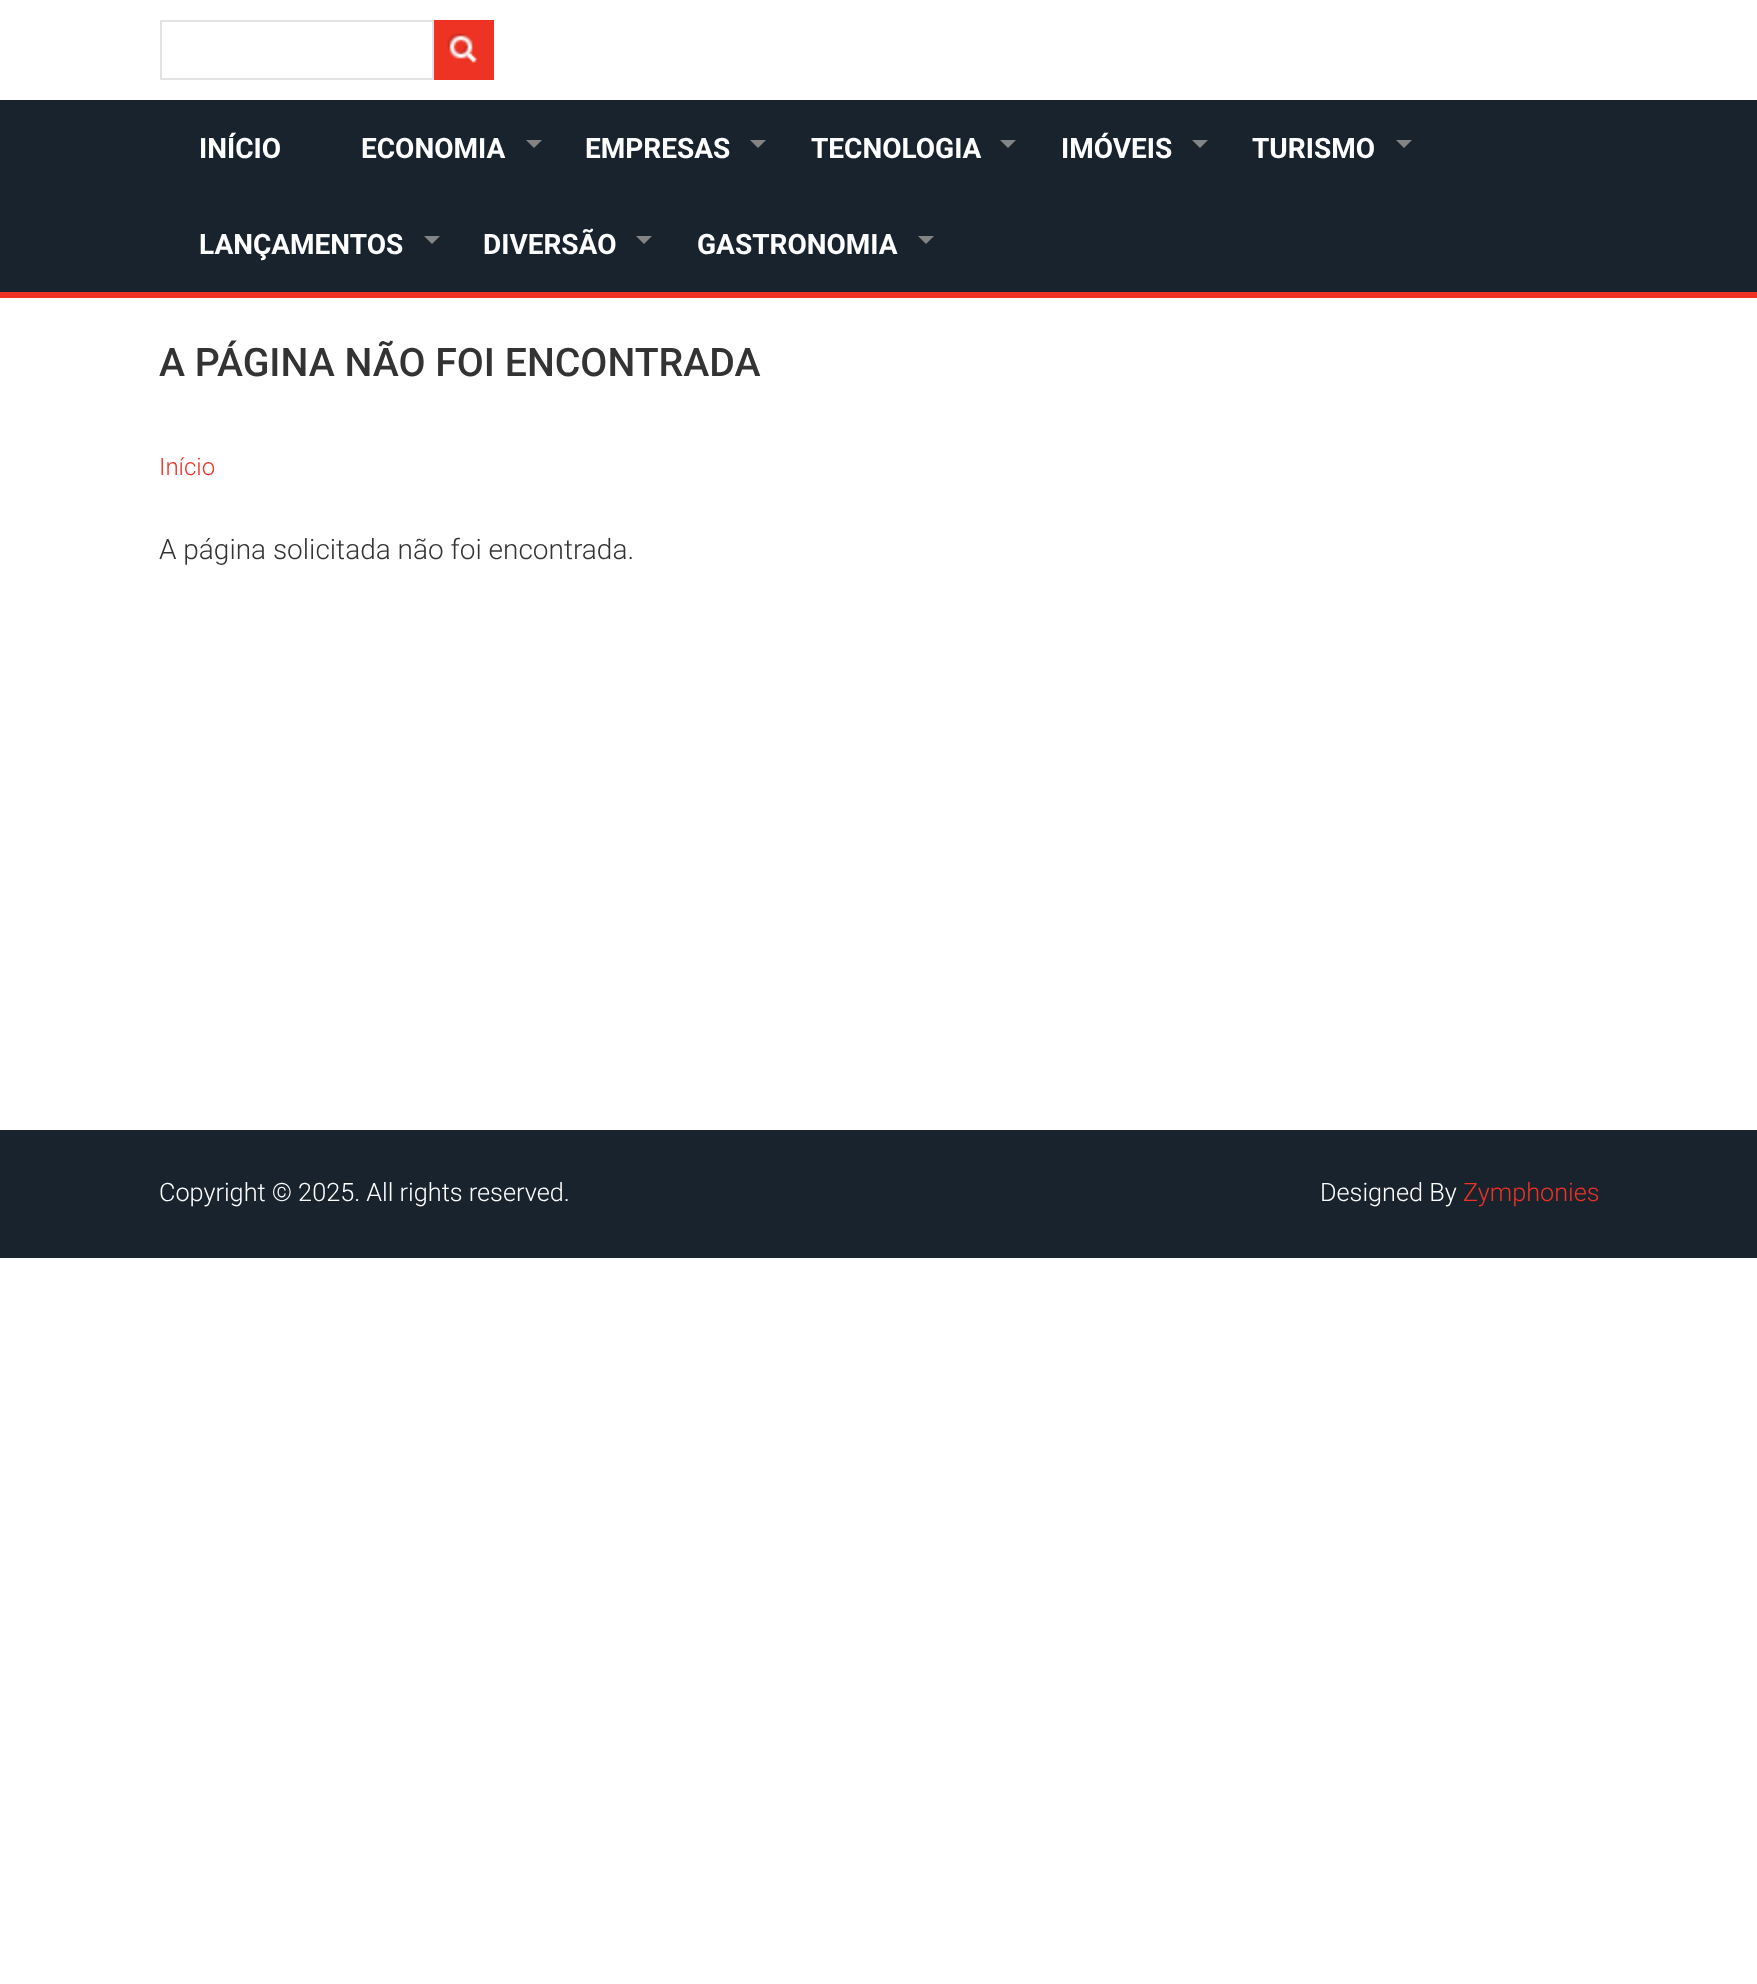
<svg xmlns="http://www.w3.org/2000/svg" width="1757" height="1984">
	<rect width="100%" height="100%" fill="#FFFFFF" />
	<rect x="161" y="21" width="272" height="58" fill="none" stroke="#E3E3E3" stroke-width="2" />
	<rect x="434" y="20" width="60" height="60" fill="#EE3224" />
	<image x="447" y="33" width="30" height="30" href="assets/img1.png" />
	<rect x="0" y="100" width="1757" height="192" fill="#19232D" />
	<rect x="0" y="292" width="1757" height="6" fill="#EE3224" />
	<g font-family="Roboto" font-size="28" font-weight="700" fill="#FFFFFF">
		<text x="199" y="158">INÍCIO</text>
		<text x="361" y="158">ECONOMIA</text>
	</g>
	<path d="M526 140H542L534 148Z" fill="#848484" />
	<text x="585" y="158" font-family="Roboto" font-size="28" font-weight="700" fill="#FFFFFF">EMPRESAS</text>
	<path d="M750 140H766L758 148Z" fill="#848484" />
	<text x="811" y="158" font-family="Roboto" font-size="28" font-weight="700" fill="#FFFFFF">TECNOLOGIA</text>
	<path d="M1000 140H1016L1008 148Z" fill="#848484" />
	<text x="1061" y="158" font-family="Roboto" font-size="28" font-weight="700" fill="#FFFFFF">IMÓVEIS</text>
	<path d="M1192 140H1208L1200 148Z" fill="#848484" />
	<text x="1252" y="158" font-family="Roboto" font-size="28" font-weight="700" fill="#FFFFFF">TURISMO</text>
	<path d="M1396 140H1412L1404 148Z" fill="#848484" />
	<text x="199" y="254" font-family="Roboto" font-size="28" font-weight="700" fill="#FFFFFF">LANÇAMENTOS</text>
	<path d="M424 236H440L432 244Z" fill="#848484" />
	<text x="483" y="254" font-family="Roboto" font-size="28" font-weight="700" fill="#FFFFFF">DIVERSÃO</text>
	<path d="M636 236H652L644 244Z" fill="#848484" />
	<text x="697" y="254" font-family="Roboto" font-size="28" font-weight="700" fill="#FFFFFF">GASTRONOMIA</text>
	<path d="M918 236H934L926 244Z" fill="#848484" />
	<text x="159" y="376" font-family="Roboto" font-size="39.25" font-weight="500" fill="#333333">A PÁGINA NÃO FOI ENCONTRADA</text>
	<text x="159" y="475" font-family="Roboto" font-size="24" font-weight="300" fill="#EE3224">Início</text>
	<text x="159" y="559" font-family="Roboto" font-size="28" font-weight="300" fill="#333333">A página solicitada não foi encontrada.</text>
	<rect x="0" y="1130" width="1757" height="128" fill="#19232D" />
	<g font-family="Roboto" font-size="25.25" font-weight="300" fill="#FFFFFF">
		<text x="159" y="1201">Copyright © 2025. All rights reserved.</text>
		<text x="1320" y="1201">Designed By</text>
	</g>
	<text x="1463" y="1201" font-family="Roboto" font-size="25.25" font-weight="300" fill="#EE3224">Zymphonies</text>
</svg>
